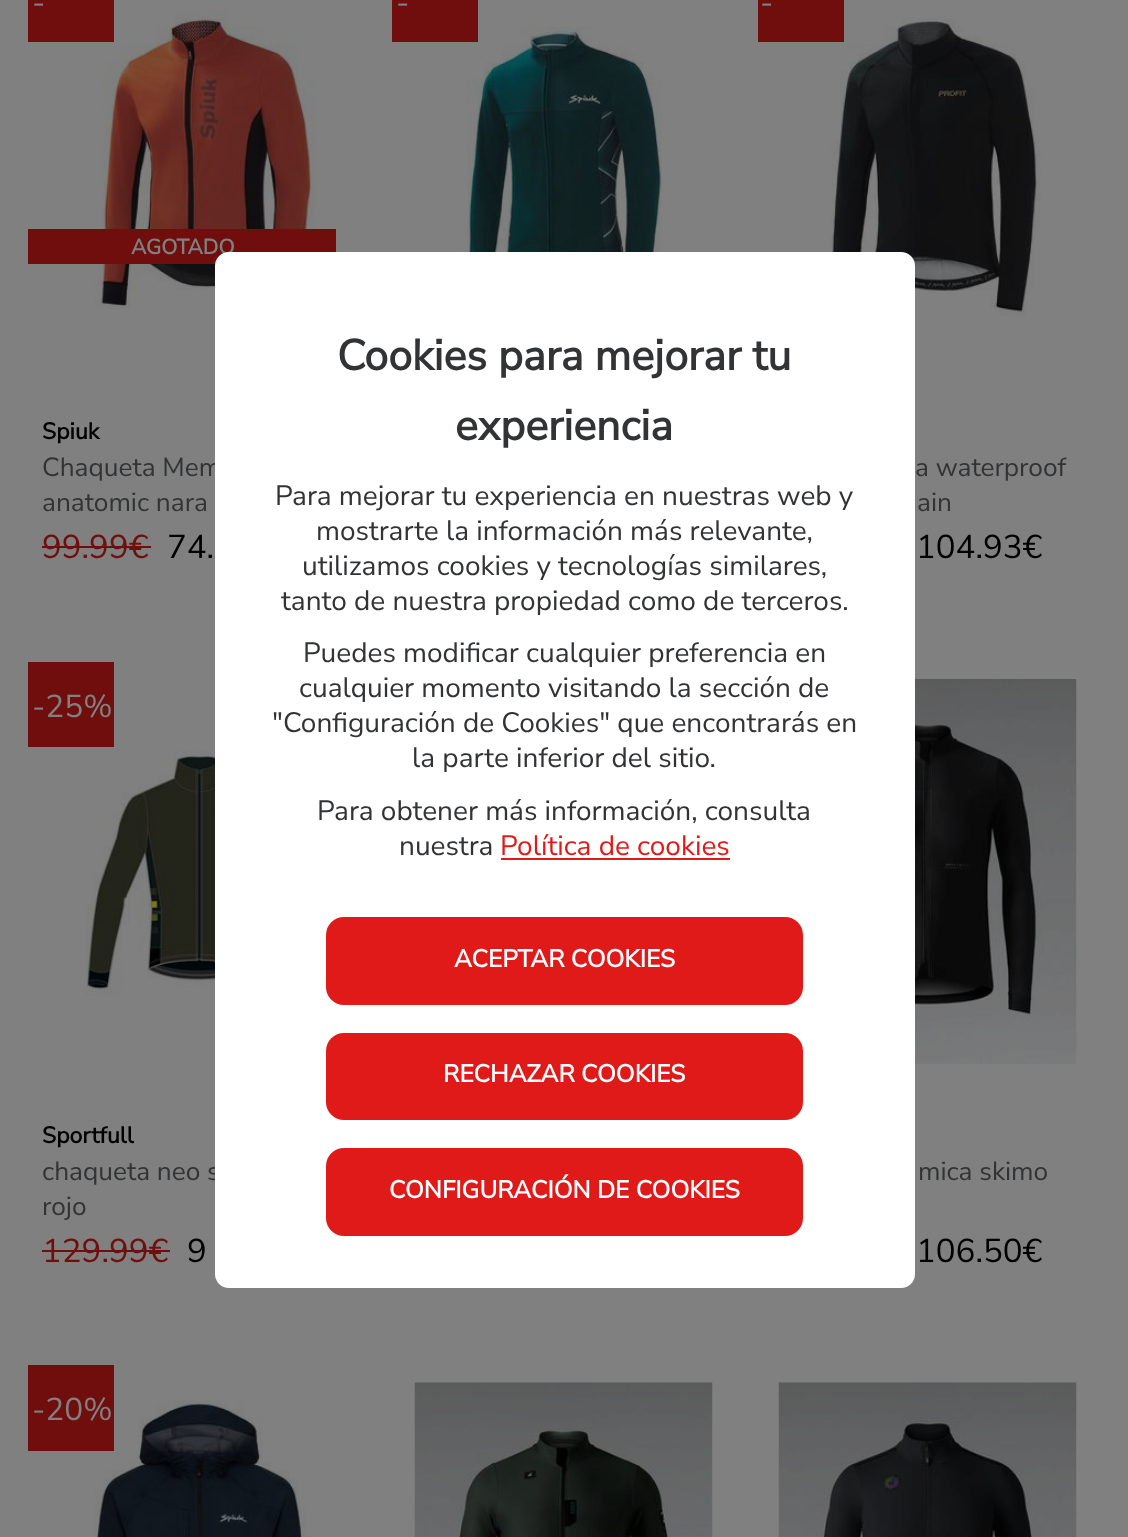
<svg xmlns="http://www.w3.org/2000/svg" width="1128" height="1537">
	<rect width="100%" height="100%" fill="#808080" />
	<image x="95" y="10" width="221" height="307" href="assets/img1.png" />
	<rect x="28" y="0" width="86" height="42" fill="#700D0D" />
	<text x="32" y="13" font-family="Nunito Sans" font-size="31.5" font-weight="200" fill="#808080">-</text>
	<rect x="28" y="229" width="308" height="35" fill="#700D0D" />
	<text x="131" y="254" font-family="Nunito Sans" font-size="21" font-weight="700" fill="#808080">AGOTADO</text>
	<text x="42" y="439" font-family="Nunito Sans" font-size="23" font-weight="700" fill="#000000">Spiuk</text>
	<g font-family="Nunito Sans" font-size="26.25" font-weight="200" fill="#323335">
		<text x="42" y="476">Chaqueta Mem</text>
		<text x="42" y="511">anatomic nara</text>
	</g>
	<text x="42" y="558" font-family="Nunito Sans" font-size="33" font-weight="200" fill="#700D0D">99.99€</text>
	<rect x="42" y="546" width="109" height="2" fill="#700D0D" />
	<text x="167" y="558" font-family="Nunito Sans" font-size="33" font-weight="200" fill="#000000">74.</text>
	<image x="466" y="26" width="197" height="226" href="assets/img2.png" />
	<rect x="392" y="0" width="86" height="42" fill="#700D0D" />
	<text x="396" y="13" font-family="Nunito Sans" font-size="31.5" font-weight="200" fill="#808080">-</text>
	<image x="830" y="18" width="212" height="299" href="assets/img3.png" />
	<rect x="758" y="0" width="86" height="42" fill="#700D0D" />
	<text x="760" y="13" font-family="Nunito Sans" font-size="31.5" font-weight="200" fill="#808080">-</text>
	<g font-family="Nunito Sans" font-size="26.25" font-weight="200" fill="#323335">
		<text x="915" y="476">a waterproof</text>
		<text x="917" y="511">ain</text>
	</g>
	<text x="916" y="558" font-family="Nunito Sans" font-size="33" font-weight="200" fill="#000000">104.93€</text>
	<rect x="28" y="662" width="86" height="85" fill="#700D0D" />
	<text x="32" y="717" font-family="Nunito Sans" font-size="31.5" font-weight="200" fill="#808080">-25%</text>
	<image x="86" y="751" width="129" height="245" href="assets/img4.png" />
	<text x="42" y="1143" font-family="Nunito Sans" font-size="23" font-weight="700" fill="#000000">Sportfull</text>
	<g font-family="Nunito Sans" font-size="26.25" font-weight="200" fill="#323335">
		<text x="42" y="1180">chaqueta neo s</text>
		<text x="42" y="1215">rojo</text>
	</g>
	<text x="42" y="1262" font-family="Nunito Sans" font-size="33" font-weight="200" fill="#700D0D">129.99€</text>
	<rect x="42" y="1250" width="128" height="2" fill="#700D0D" />
	<text x="187" y="1262" font-family="Nunito Sans" font-size="33" font-weight="200" fill="#000000">9</text>
	<image x="915" y="679" width="162" height="385" href="assets/img5.png" />
	<text x="918" y="1180" font-family="Nunito Sans" font-size="26.25" font-weight="200" fill="#323335">mica skimo</text>
	<text x="916" y="1262" font-family="Nunito Sans" font-size="33" font-weight="200" fill="#000000">106.50€</text>
	<image x="95" y="1400" width="211" height="137" href="assets/img6.png" />
	<rect x="28" y="1365" width="86" height="86" fill="#700D0D" />
	<text x="32" y="1420" font-family="Nunito Sans" font-size="31.5" font-weight="200" fill="#808080">-20%</text>
	<image x="414" y="1382" width="299" height="155" href="assets/img7.png" />
	<image x="778" y="1382" width="299" height="155" href="assets/img8.png" />
	<rect x="215" y="252" width="700" height="1036" rx="14" fill="#FFFFFF" />
	<g font-family="Nunito Sans" font-size="42.9" font-weight="700" fill="#323335">
		<text x="337" y="370">Cookies para mejorar tu</text>
		<text x="455" y="440">experiencia</text>
	</g>
	<g font-family="Nunito Sans" font-size="28" font-weight="200" fill="#323335">
		<text x="275" y="505">Para mejorar tu experiencia en nuestras web y</text>
		<text x="316" y="540">mostrarte la información más relevante,</text>
		<text x="302" y="575">utilizamos cookies y tecnologías similares,</text>
		<text x="281" y="610">tanto de nuestra propiedad como de terceros.</text>
		<text x="303" y="662">Puedes modificar cualquier preferencia en</text>
		<text x="299" y="697">cualquier momento visitando la sección de</text>
		<text x="272" y="732">"Configuración de Cookies" que encontrarás en</text>
		<text x="412" y="767">la parte inferior del sitio.</text>
		<text x="317" y="820">Para obtener más información, consulta</text>
		<text x="399" y="855">nuestra</text>
	</g>
	<text x="500" y="855" font-family="Nunito Sans" font-size="28" font-weight="200" fill="#E01919">Política de cookies</text>
	<rect x="501" y="858" width="229" height="2" fill="#E01919" />
	<rect x="326" y="917" width="477" height="88" rx="18" fill="#E01919" />
	<text x="454" y="967" font-family="Nunito Sans" font-size="24.5" font-weight="700" fill="#FFFFFF">ACEPTAR COOKIES</text>
	<rect x="326" y="1033" width="477" height="87" rx="18" fill="#E01919" />
	<text x="443" y="1082" font-family="Nunito Sans" font-size="24.5" font-weight="700" fill="#FFFFFF">RECHAZAR COOKIES</text>
	<rect x="326" y="1148" width="477" height="88" rx="18" fill="#E01919" />
	<text x="389" y="1198" font-family="Nunito Sans" font-size="24.5" font-weight="700" fill="#FFFFFF">CONFIGURACIÓN DE COOKIES</text>
</svg>
